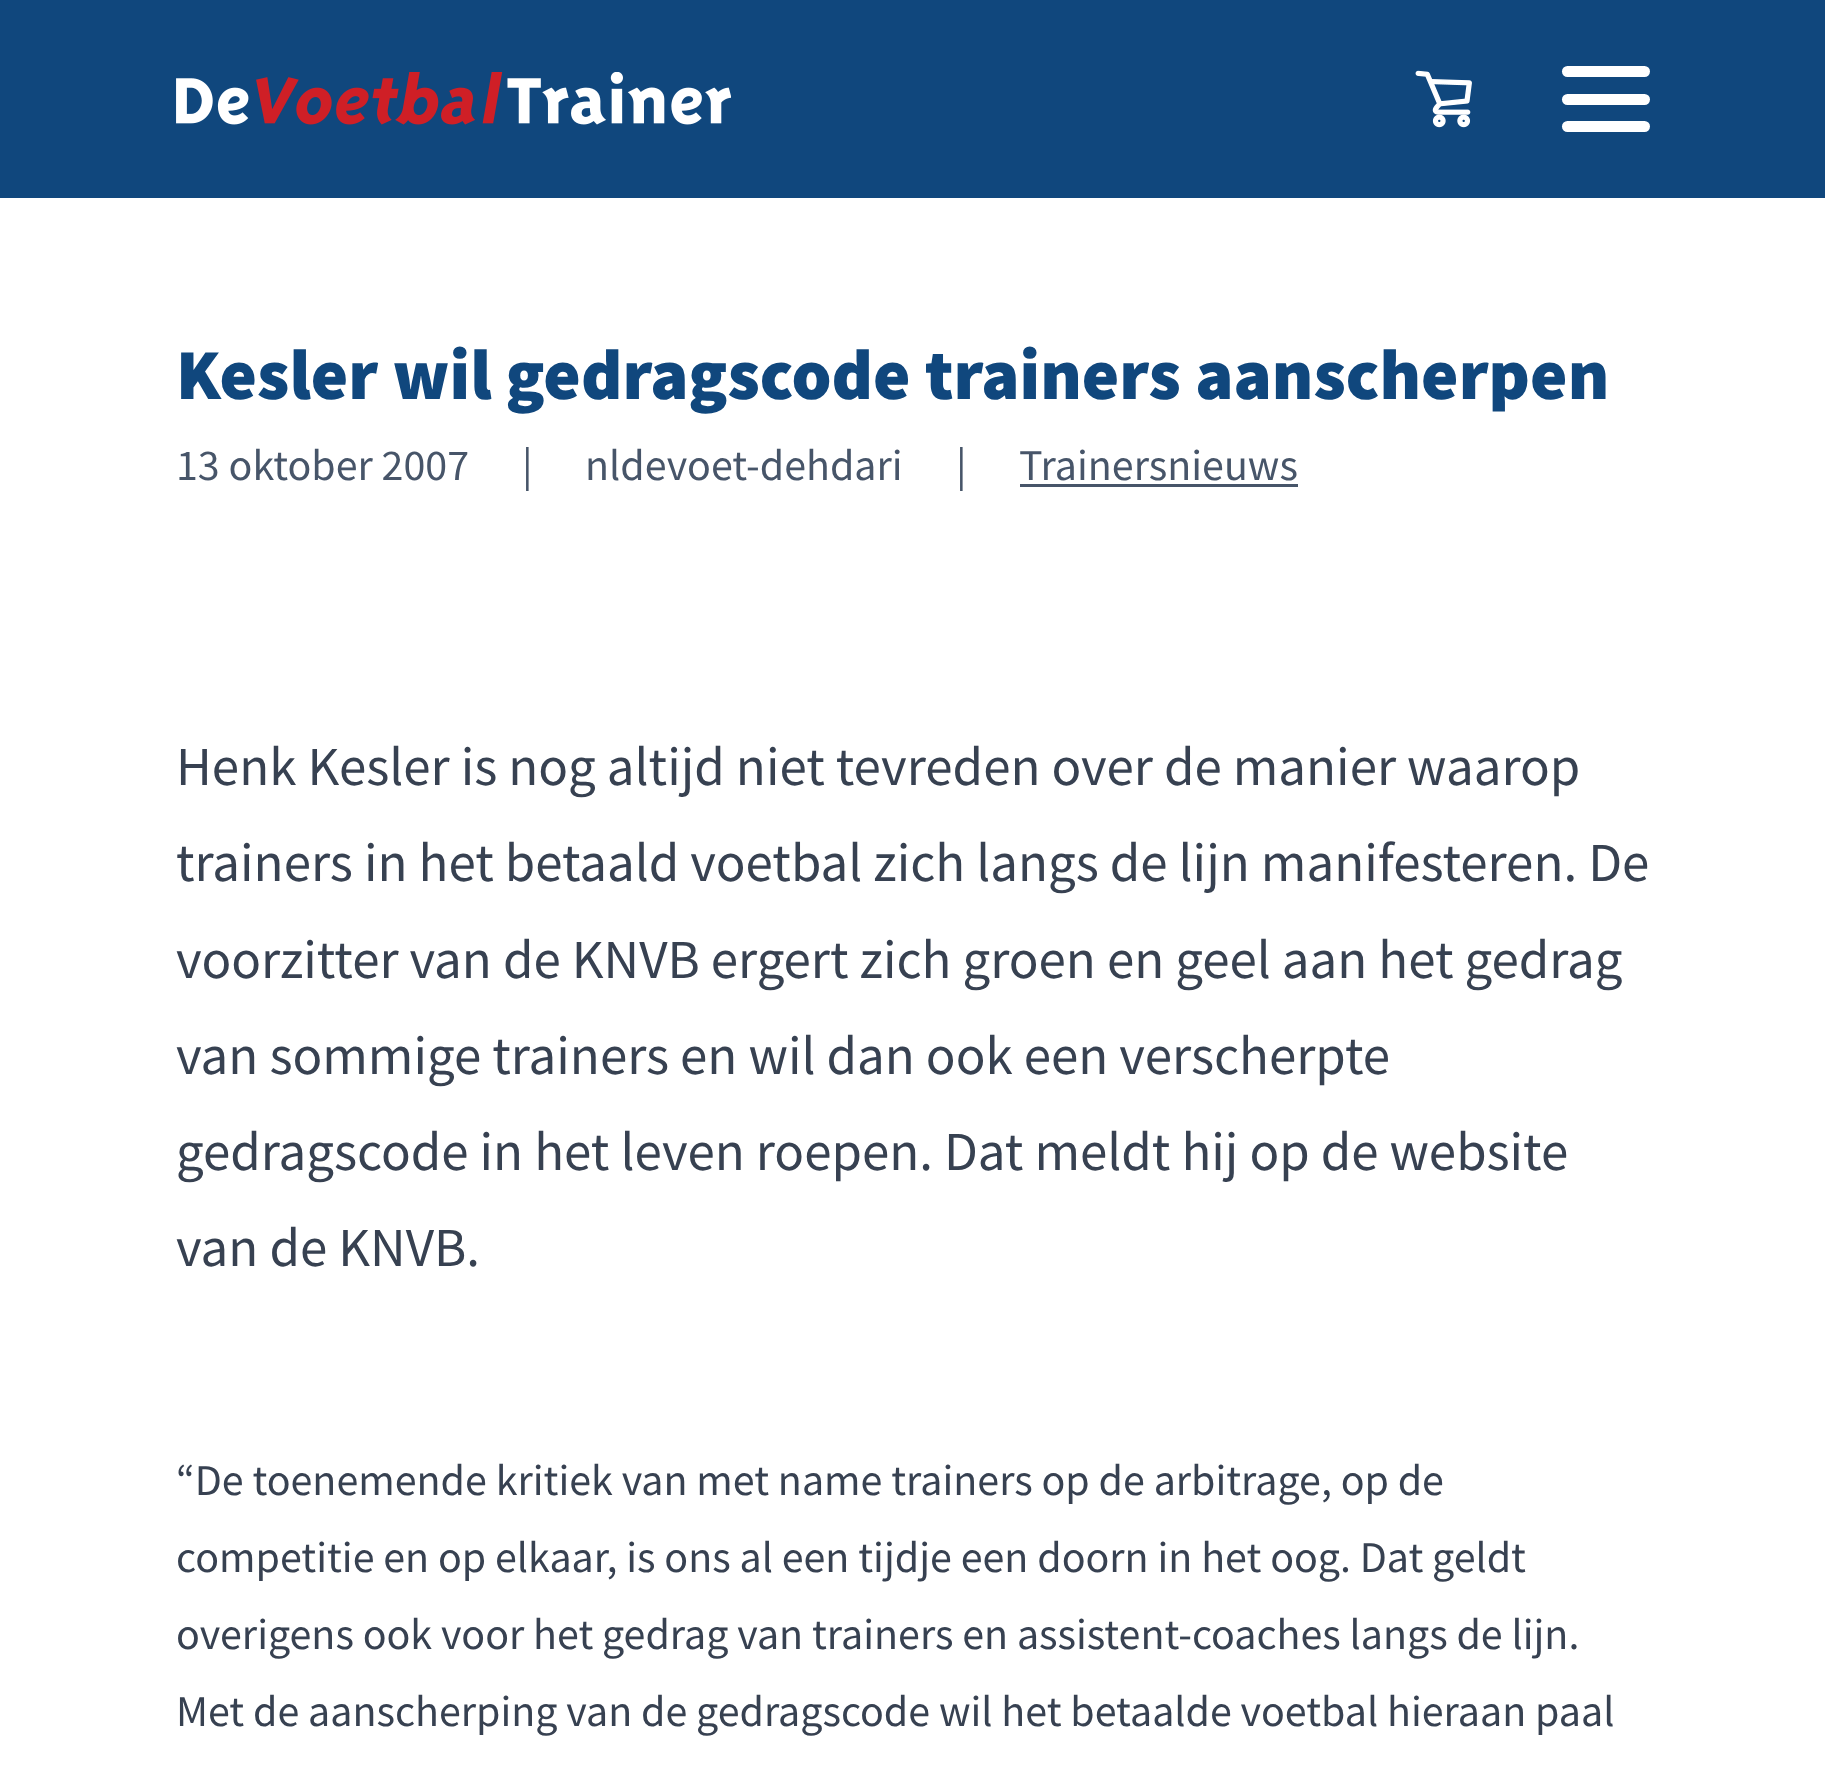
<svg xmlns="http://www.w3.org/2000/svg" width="1825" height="1772">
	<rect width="100%" height="100%" fill="#FFFFFF" />
	<rect x="0" y="0" width="1825" height="198" fill="#10477D" />
	<image x="176" y="72" width="555" height="53" href="assets/img1.png" />
	<image x="1415" y="70" width="57" height="58" href="assets/img2.png" />
	<rect x="1562" y="121" width="88" height="11" rx="5.5" fill="#FFFFFF" />
	<rect x="1562" y="94" width="88" height="11" rx="5.5" fill="#FFFFFF" />
	<rect x="1562" y="66" width="88" height="11" rx="5.5" fill="#FFFFFF" />
	<text x="176" y="399" font-family="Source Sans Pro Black" font-size="71.5" font-weight="900" fill="#10477D">Kesler wil gedragscode trainers aanscherpen</text>
	<g font-family="Source Sans Pro" font-size="44" fill="#475569">
		<text x="176" y="480">13 oktober 2007</text>
		<text x="522" y="480">|</text>
		<text x="585" y="480">nldevoet-dehdari</text>
		<text x="956" y="480">|</text>
		<text x="1019" y="480">Trainersnieuws</text>
	</g>
	<rect x="1020" y="484" width="278" height="3" fill="#475569" />
	<g font-family="Source Sans Pro" font-size="55" fill="#374151">
		<text x="176" y="785">Henk Kesler is nog altijd niet tevreden over de manier waarop</text>
		<text x="176" y="881">trainers in het betaald voetbal zich langs de lijn manifesteren. De</text>
		<text x="176" y="978">voorzitter van de KNVB ergert zich groen en geel aan het gedrag</text>
		<text x="176" y="1074">van sommige trainers en wil dan ook een verscherpte</text>
		<text x="176" y="1170">gedragscode in het leven roepen. Dat meldt hij op de website</text>
		<text x="176" y="1266">van de KNVB.</text>
	</g>
	<g font-family="Source Sans Pro" font-size="44" fill="#374151">
		<text x="176" y="1495">“De toenemende kritiek van met name trainers op de arbitrage, op de</text>
		<text x="176" y="1572">competitie en op elkaar, is ons al een tijdje een doorn in het oog. Dat geldt</text>
		<text x="176" y="1649">overigens ook voor het gedrag van trainers en assistent-coaches langs de lijn.</text>
		<text x="176" y="1726">Met de aanscherping van de gedragscode wil het betaalde voetbal hieraan paal</text>
	</g>
</svg>
